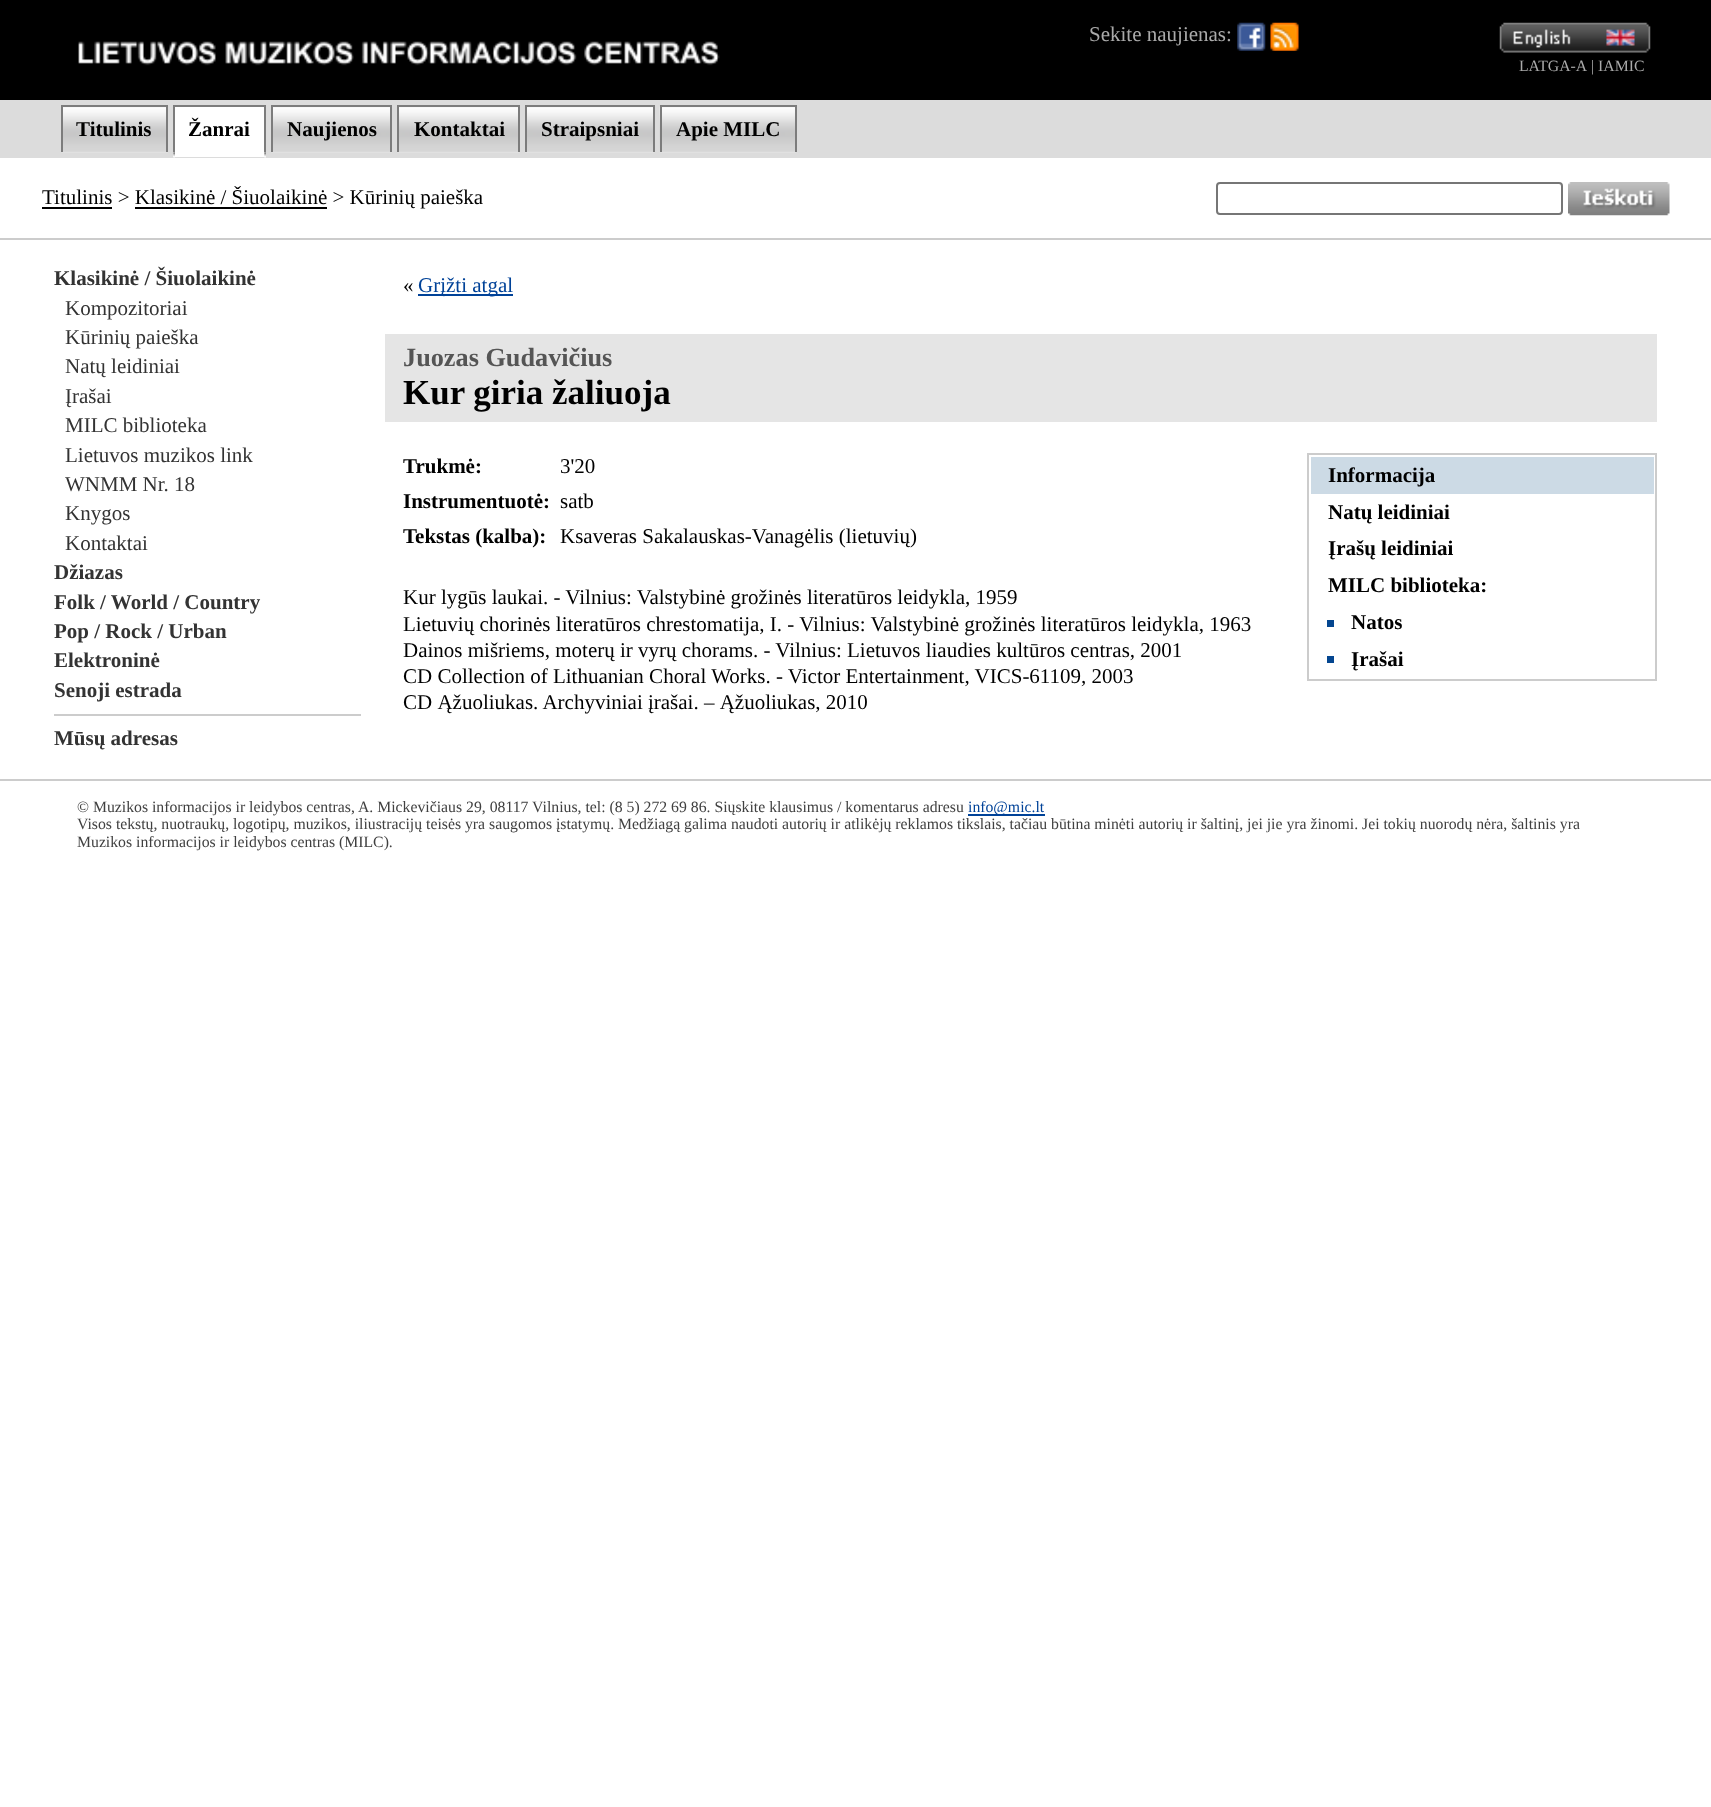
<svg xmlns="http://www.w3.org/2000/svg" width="1711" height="1807">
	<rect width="100%" height="100%" fill="#FFFFFF" />
	<rect x="0" y="0" width="1711" height="100" fill="#000000" />
	<image x="78" y="41" width="642" height="25" href="assets/img1.png" />
	<text x="1089" y="41" font-family="Liberation Serif" font-size="21" fill="#AAAAAA">Sekite naujienas:</text>
	<image x="1237" y="22" width="29" height="29" href="assets/img2.png" />
	<image x="1270" y="22" width="29" height="29" href="assets/img3.png" />
	<image x="1499" y="22" width="152" height="31" href="assets/img4.png" />
	<g font-family="Liberation Serif" font-size="15.75" fill="#AAAAAA">
		<text x="1519" y="71">LATGA-A</text>
		<text x="1591" y="71">| IAMIC</text>
	</g>
	<rect x="0" y="100" width="1711" height="58" fill="#DCDCDC" />
	<image x="61" y="107" width="107" height="46" href="assets/img5.png" />
	<rect x="61" y="105" width="107" height="2" fill="#7C7C7C" />
	<rect x="166" y="105" width="2" height="47" fill="#7C7C7C" />
	<rect x="61" y="105" width="2" height="47" fill="#7C7C7C" />
	<text x="76" y="136" font-family="Liberation Serif" font-size="21" font-weight="700" fill="#000000">Titulinis</text>
	<rect x="175" y="107" width="89" height="45" fill="#FFFFFF" />
	<rect x="173" y="105" width="93" height="2" fill="#7C7C7C" />
	<rect x="264" y="105" width="2" height="47" fill="#7C7C7C" />
	<rect x="173" y="105" width="2" height="47" fill="#7C7C7C" />
	<text x="188" y="136" font-family="Liberation Serif" font-size="21" font-weight="700" fill="#000000">Žanrai</text>
	<image x="271" y="107" width="121" height="46" href="assets/img6.png" />
	<rect x="271" y="105" width="121" height="2" fill="#7C7C7C" />
	<rect x="390" y="105" width="2" height="47" fill="#7C7C7C" />
	<rect x="271" y="105" width="2" height="47" fill="#7C7C7C" />
	<text x="287" y="136" font-family="Liberation Serif" font-size="21" font-weight="700" fill="#000000">Naujienos</text>
	<image x="397" y="107" width="123" height="46" href="assets/img7.png" />
	<rect x="397" y="105" width="123" height="2" fill="#7C7C7C" />
	<rect x="518" y="105" width="2" height="47" fill="#7C7C7C" />
	<rect x="397" y="105" width="2" height="47" fill="#7C7C7C" />
	<text x="414" y="136" font-family="Liberation Serif" font-size="21" font-weight="700" fill="#000000">Kontaktai</text>
	<image x="525" y="107" width="130" height="46" href="assets/img8.png" />
	<rect x="525" y="105" width="130" height="2" fill="#7C7C7C" />
	<rect x="653" y="105" width="2" height="47" fill="#7C7C7C" />
	<rect x="525" y="105" width="2" height="47" fill="#7C7C7C" />
	<text x="541" y="136" font-family="Liberation Serif" font-size="21" font-weight="700" fill="#000000">Straipsniai</text>
	<image x="659" y="105" width="138" height="48" href="assets/img9.png" />
	<rect x="660" y="105" width="136" height="2" fill="#7C7C7C" />
	<rect x="795" y="105" width="2" height="47" fill="#7C7C7C" />
	<rect x="660" y="105" width="2" height="47" fill="#7C7C7C" />
	<text x="676" y="136" font-family="Liberation Serif" font-size="21" font-weight="700" fill="#000000">Apie MILC</text>
	<rect x="173" y="152" width="93" height="5" fill="#FFFFFF" />
	<image x="173" y="152" width="2" height="6" href="assets/img10.png" />
	<image x="264" y="152" width="2" height="6" href="assets/img10.png" />
	<rect x="42" y="207" width="70" height="2" fill="#000000" />
	<text x="42" y="204" font-family="Liberation Serif" font-size="21" fill="#000000">Titulinis &gt; Klasikinė / Šiuolaikinė &gt; Kūrinių paieška</text>
	<rect x="135" y="207" width="192" height="2" fill="#000000" />
	<rect x="1217" y="183" width="345" height="31" rx="3" fill="none" stroke="#767676" stroke-width="2" />
	<image x="1568" y="182" width="102" height="34" href="assets/img11.png" />
	<rect x="0" y="238" width="1711" height="2" fill="#CCCCCC" />
	<text x="54" y="285" font-family="Liberation Serif" font-size="21" font-weight="700" fill="#333333">Klasikinė / Šiuolaikinė</text>
	<g font-family="Liberation Serif" font-size="21" fill="#333333">
		<text x="65" y="315">Kompozitoriai</text>
		<text x="65" y="344">Kūrinių paieška</text>
		<text x="65" y="373">Natų leidiniai</text>
		<text x="65" y="403">Įrašai</text>
		<text x="65" y="432">MILC biblioteka</text>
		<text x="65" y="462">Lietuvos muzikos link</text>
		<text x="65" y="491">WNMM Nr. 18</text>
		<text x="65" y="520">Knygos</text>
		<text x="65" y="550">Kontaktai</text>
	</g>
	<g font-family="Liberation Serif" font-size="21" font-weight="700" fill="#333333">
		<text x="54" y="579">Džiazas</text>
		<text x="54" y="609">Folk / World / Country</text>
		<text x="54" y="638">Pop / Rock / Urban</text>
		<text x="54" y="667">Elektroninė</text>
		<text x="54" y="697">Senoji estrada</text>
	</g>
	<rect x="54" y="714" width="307" height="2" fill="#CCCCCC" />
	<text x="54" y="745" font-family="Liberation Serif" font-size="21" font-weight="700" fill="#333333">Mūsų adresas</text>
	<text x="403" y="292" font-family="Liberation Serif" font-size="21" fill="#000000">«</text>
	<rect x="418" y="294" width="95" height="2" fill="#004298" />
	<text x="418" y="292" font-family="Liberation Serif" font-size="21" fill="#004298">Grįžti atgal</text>
	<rect x="385" y="334" width="1272" height="88" fill="#E5E5E5" />
	<text x="403" y="366" font-family="Liberation Serif" font-size="26.25" font-weight="700" fill="#555555">Juozas Gudavičius</text>
	<text x="403" y="404" font-family="Liberation Serif" font-size="35" font-weight="700" fill="#000000">Kur giria žaliuoja</text>
	<text x="403" y="473" font-family="Liberation Serif" font-size="21" font-weight="700" fill="#000000">Trukmė:</text>
	<text x="560" y="473" font-family="Liberation Serif" font-size="21" fill="#000000">3'20</text>
	<text x="403" y="508" font-family="Liberation Serif" font-size="21" font-weight="700" fill="#000000">Instrumentuotė:</text>
	<text x="560" y="508" font-family="Liberation Serif" font-size="21" fill="#000000">satb</text>
	<text x="403" y="543" font-family="Liberation Serif" font-size="21" font-weight="700" fill="#000000">Tekstas (kalba):</text>
	<g font-family="Liberation Serif" font-size="21" fill="#000000">
		<text x="560" y="543">Ksaveras Sakalauskas-Vanagėlis (lietuvių)</text>
		<text x="403" y="604">Kur lygūs laukai. - Vilnius: Valstybinė grožinės literatūros leidykla, 1959</text>
		<text x="403" y="631">Lietuvių chorinės literatūros chrestomatija, I. - Vilnius: Valstybinė grožinės literatūros leidykla, 1963</text>
		<text x="403" y="657">Dainos mišriems, moterų ir vyrų chorams. - Vilnius: Lietuvos liaudies kultūros centras, 2001</text>
		<text x="403" y="683">CD Collection of Lithuanian Choral Works. - Victor Entertainment, VICS-61109, 2003</text>
		<text x="403" y="709">CD Ąžuoliukas. Archyviniai įrašai. – Ąžuoliukas, 2010</text>
	</g>
	<rect x="1308" y="454" width="348" height="226" fill="none" stroke="#CCCCCC" stroke-width="2" />
	<rect x="1311" y="457" width="343" height="37" fill="#CCDAE5" />
	<g font-family="Liberation Serif" font-size="21" font-weight="700" fill="#000000">
		<text x="1328" y="482">Informacija</text>
		<text x="1328" y="519">Natų leidiniai</text>
		<text x="1328" y="555">Įrašų leidiniai</text>
		<text x="1328" y="592">MILC biblioteka:</text>
	</g>
	<rect x="1327" y="620" width="7" height="7" fill="#044690" />
	<text x="1351" y="629" font-family="Liberation Serif" font-size="21" font-weight="700" fill="#000000">Natos</text>
	<rect x="1327" y="656" width="7" height="7" fill="#044690" />
	<text x="1351" y="666" font-family="Liberation Serif" font-size="21" font-weight="700" fill="#000000">Įrašai</text>
	<rect x="0" y="779" width="1711" height="2" fill="#CCCCCC" />
	<text x="77" y="812" font-family="Liberation Serif" font-size="15.75" fill="#404040">© Muzikos informacijos ir leidybos centras, A. Mickevičiaus 29, 08117 Vilnius, tel: (8 5) 272 69 86. Siųskite klausimus / komentarus adresu</text>
	<rect x="968" y="814" width="77" height="2" fill="#004298" />
	<text x="968" y="812" font-family="Liberation Serif" font-size="15.75" fill="#004298">info@mic.lt</text>
	<g font-family="Liberation Serif" font-size="15.75" fill="#404040">
		<text x="77" y="829">Visos tekstų, nuotraukų, logotipų, muzikos, iliustracijų teisės yra saugomos įstatymų. Medžiagą galima naudoti autorių ir atlikėjų reklamos tikslais, tačiau būtina minėti autorių ir šaltinį, jei jie yra žinomi. Jei tokių nuorodų nėra, šaltinis yra</text>
		<text x="77" y="847">Muzikos informacijos ir leidybos centras (MILC).</text>
	</g>
</svg>
